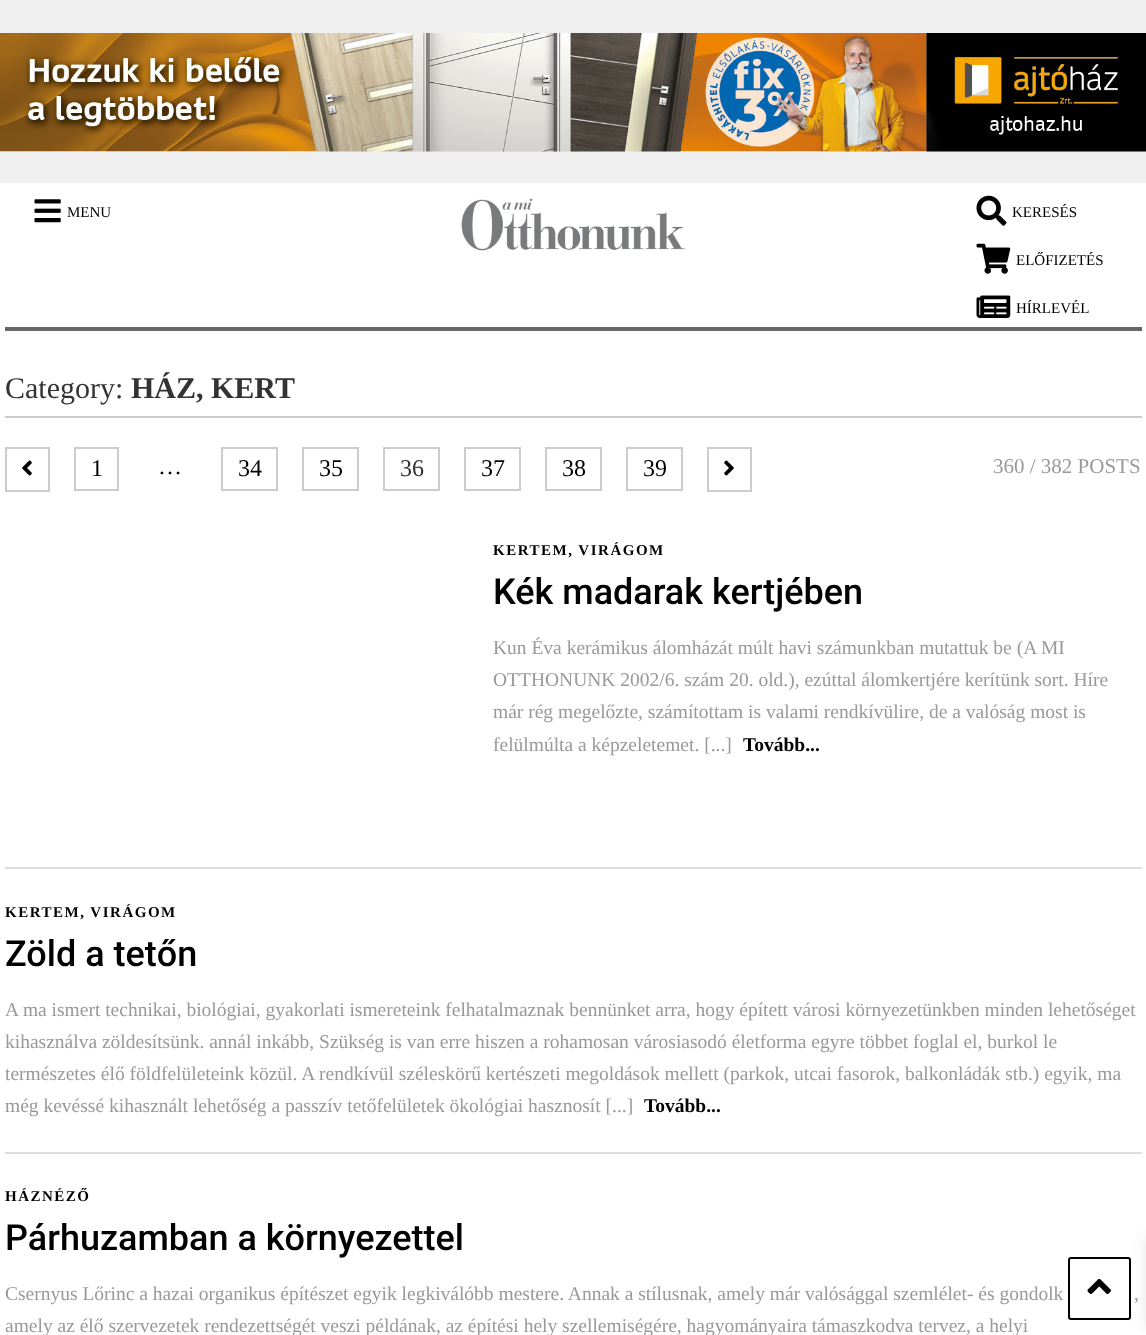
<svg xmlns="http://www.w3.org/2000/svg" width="1146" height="1335">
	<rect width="100%" height="100%" fill="#EFEFEF" />
	<image x="0" y="33" width="1146" height="119" href="assets/img1.png" />
	<rect x="0" y="183" width="1146" height="1152" fill="#FFFFFF" />
	<image x="34" y="199" width="27" height="24" href="assets/img2.png" />
	<text x="67" y="217" font-family="Liberation Serif" font-size="15" fill="#000000">MENU</text>
	<image x="461" y="198" width="224" height="53" href="assets/img3.png" />
	<image x="976" y="195" width="31" height="31" href="assets/img4.png" />
	<text x="1012" y="217" font-family="Liberation Serif" font-size="15" fill="#000000">KERESÉS</text>
	<image x="976" y="243" width="35" height="31" href="assets/img5.png" />
	<text x="1016" y="265" font-family="Liberation Serif" font-size="15" fill="#000000">ELŐFIZETÉS</text>
	<image x="976" y="295" width="35" height="23" href="assets/img6.png" />
	<text x="1016" y="313" font-family="Liberation Serif" font-size="15" fill="#000000">HÍRLEVÉL</text>
	<rect x="5" y="327" width="1137" height="4" fill="#666666" />
	<rect x="5" y="416" width="1137" height="2" fill="#CCCCCC" />
	<text x="5" y="398" font-family="Liberation Serif" font-size="30" fill="#333333">Category:</text>
	<text x="131" y="398" font-family="Liberation Serif" font-size="30" font-weight="700" fill="#333333">HÁZ, KERT</text>
	<rect x="6" y="448" width="43" height="43" fill="none" stroke="#CCCCCC" stroke-width="2" />
	<image x="22" y="460" width="10" height="16" href="assets/img7.png" />
	<rect x="75" y="448" width="43" height="42" fill="none" stroke="#CCCCCC" stroke-width="2" />
	<g font-family="Liberation Serif" font-size="24" fill="#000000">
		<text x="91" y="476">1</text>
		<text x="158" y="474">…</text>
	</g>
	<rect x="222" y="448" width="55" height="42" fill="none" stroke="#CCCCCC" stroke-width="2" />
	<text x="238" y="476" font-family="Liberation Serif" font-size="24" fill="#000000">34</text>
	<rect x="303" y="448" width="55" height="42" fill="none" stroke="#CCCCCC" stroke-width="2" />
	<text x="319" y="476" font-family="Liberation Serif" font-size="24" fill="#000000">35</text>
	<rect x="384" y="448" width="55" height="42" fill="none" stroke="#CCCCCC" stroke-width="2" />
	<text x="400" y="476" font-family="Liberation Serif" font-size="24" fill="#333333">36</text>
	<rect x="465" y="448" width="55" height="42" fill="none" stroke="#CCCCCC" stroke-width="2" />
	<text x="481" y="476" font-family="Liberation Serif" font-size="24" fill="#000000">37</text>
	<rect x="546" y="448" width="55" height="42" fill="none" stroke="#CCCCCC" stroke-width="2" />
	<text x="562" y="476" font-family="Liberation Serif" font-size="24" fill="#000000">38</text>
	<rect x="627" y="448" width="55" height="42" fill="none" stroke="#CCCCCC" stroke-width="2" />
	<text x="643" y="476" font-family="Liberation Serif" font-size="24" fill="#000000">39</text>
	<rect x="708" y="448" width="43" height="43" fill="none" stroke="#CCCCCC" stroke-width="2" />
	<image x="724" y="460" width="10" height="16" href="assets/img8.png" />
	<text x="993" y="473" font-family="Liberation Serif" font-size="21" fill="#999999">360 / 382 POSTS</text>
	<text x="493" y="555" font-family="Liberation Serif" font-size="15" font-weight="700" letter-spacing="1.5" fill="#000000">KERTEM, VIRÁGOM</text>
	<text x="493" y="604" font-family="Roboto" font-size="36" font-weight="500" fill="#000000">Kék madarak kertjében</text>
	<g font-family="Liberation Serif" font-size="19.5" fill="#999999">
		<text x="493" y="654">Kun Éva kerámikus álomházát múlt havi számunkban mutattuk be (A MI</text>
		<text x="493" y="686">OTTHONUNK 2002/6. szám 20. old.), ezúttal álomkertjére kerítünk sort. Híre</text>
		<text x="493" y="718">már rég megelőzte, számítottam is valami rendkívülire, de a valóság most is</text>
		<text x="493" y="751">felülmúlta a képzeletemet. [...]</text>
	</g>
	<text x="743" y="751" font-family="Liberation Serif" font-size="19.5" font-weight="700" fill="#000000">Tovább...</text>
	<rect x="5" y="867" width="1137" height="2" fill="#DDDDDD" />
	<text x="5" y="917" font-family="Liberation Serif" font-size="15" font-weight="700" letter-spacing="1.5" fill="#000000">KERTEM, VIRÁGOM</text>
	<text x="5" y="966" font-family="Roboto" font-size="36" font-weight="500" fill="#000000">Zöld a tetőn</text>
	<g font-family="Liberation Serif" font-size="19.5" fill="#999999">
		<text x="5" y="1016">A ma ismert technikai, biológiai, gyakorlati ismereteink felhatalmaznak bennünket arra, hogy épített városi környezetünkben minden lehetőséget</text>
		<text x="5" y="1048">kihasználva zöldesítsünk. annál inkább, Szükség is van erre hiszen a rohamosan városiasodó életforma egyre többet foglal el, burkol le</text>
		<text x="5" y="1080">természetes élő földfelületeink közül. A rendkívül széleskörű kertészeti megoldások mellett (parkok, utcai fasorok, balkonládák stb.) egyik, ma</text>
		<text x="5" y="1112">még kevéssé kihasznált lehetőség a passzív tetőfelületek ökológiai hasznosít [...]</text>
	</g>
	<text x="644" y="1112" font-family="Liberation Serif" font-size="19.5" font-weight="700" fill="#000000">Tovább...</text>
	<rect x="5" y="1152" width="1137" height="2" fill="#DDDDDD" />
	<text x="5" y="1201" font-family="Liberation Serif" font-size="15" font-weight="700" letter-spacing="1.5" fill="#000000">HÁZNÉZŐ</text>
	<text x="5" y="1250" font-family="Roboto" font-size="36" font-weight="500" fill="#000000">Párhuzamban a környezettel</text>
	<g font-family="Liberation Serif" font-size="19.5" fill="#999999">
		<text x="5" y="1300">Csernyus Lőrinc a hazai organikus építészet egyik legkiválóbb mestere. Annak a stílusnak, amely már valósággal szemlélet- és gondolk</text>
		<text x="1134" y="1300">,</text>
		<text x="5" y="1332">amely az élő szervezetek rendezettségét veszi példának, az építési hely szellemiségére, hagyományaira támaszkodva tervez, a helyi</text>
	</g>
	<rect x="1069" y="1258" width="61" height="61" rx="2" fill="none" stroke="#000000" stroke-width="2" />
	<image x="1087" y="1278" width="24" height="16" href="assets/img9.png" />
	<rect x="1146" y="1238" width="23" height="90" fill="#000000" fill-opacity="0.1" filter="blur(7.5px)" />
</svg>
